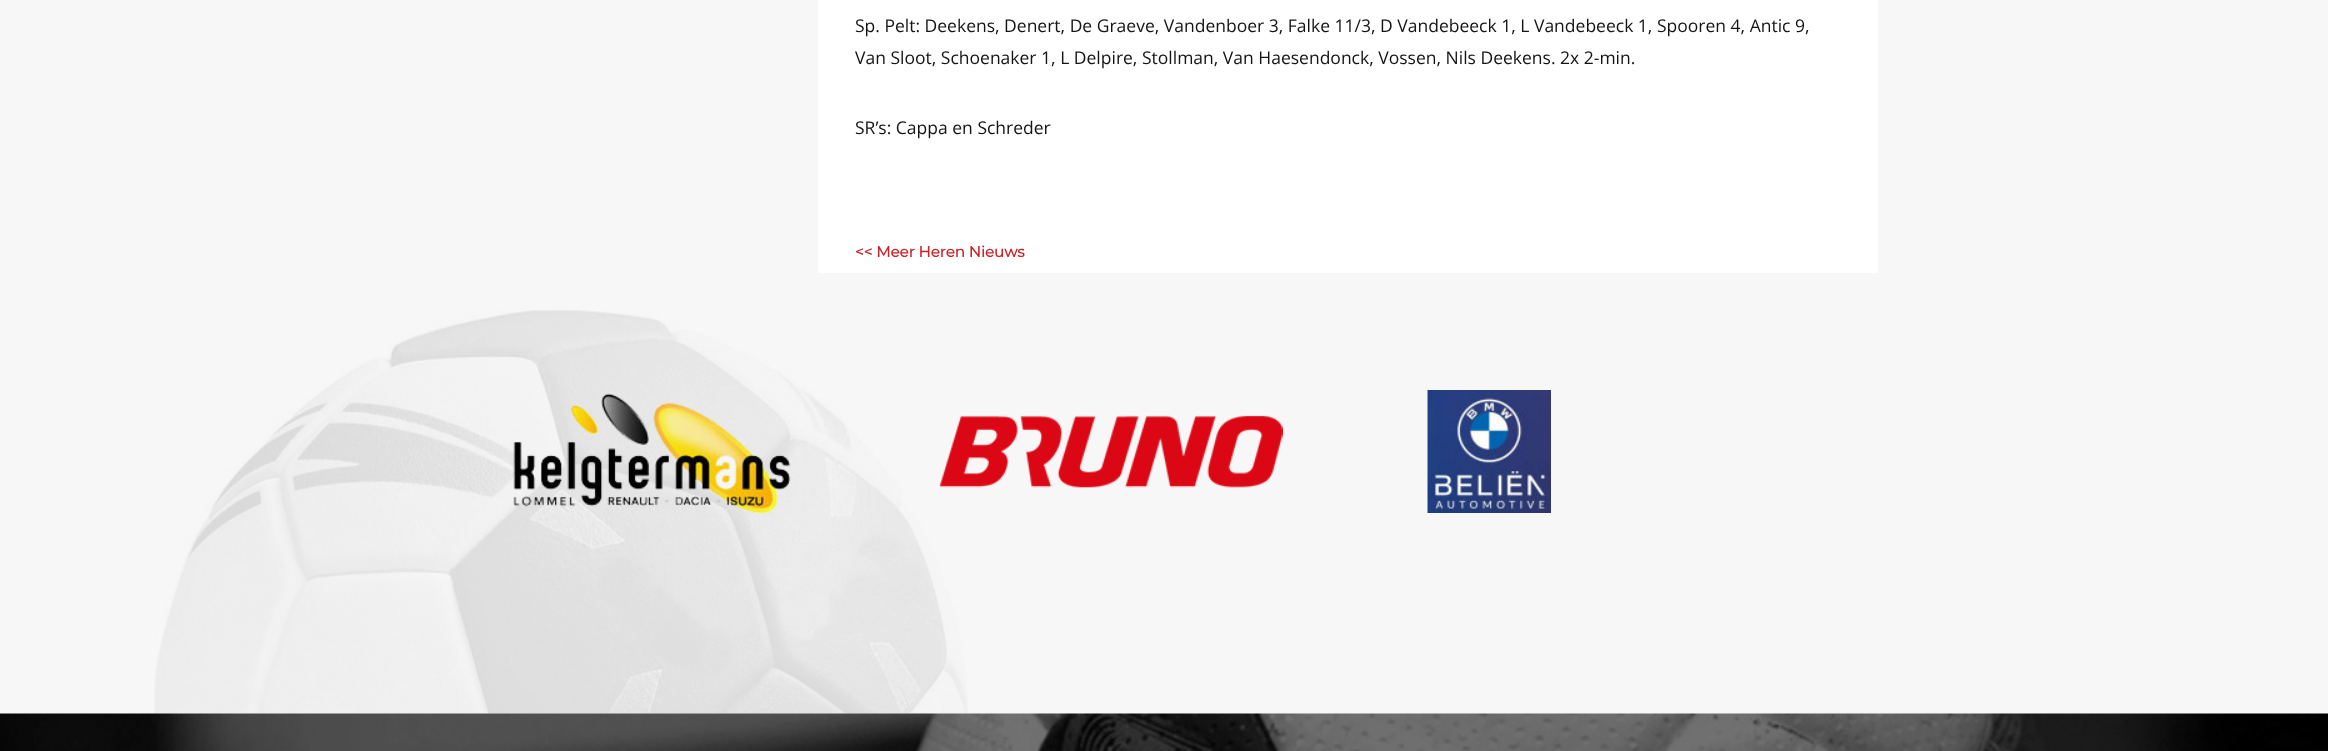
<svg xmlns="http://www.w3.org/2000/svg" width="2328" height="751">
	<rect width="100%" height="100%" fill="#F7F7F7" />
	<rect x="818" y="0" width="1060" height="273" fill="#FFFFFF" />
	<g font-family="Open Sans" font-size="17.5" fill="#141414">
		<text x="855" y="32">Sp. Pelt: Deekens, Denert, De Graeve, Vandenboer 3, Falke 11/3, D Vandebeeck 1, L Vandebeeck 1, Spooren 4, Antic 9,</text>
		<text x="855" y="64">Van Sloot, Schoenaker 1, L Delpire, Stollman, Van Haesendonck, Vossen, Nils Deekens. 2x 2-min.</text>
		<text x="855" y="134">SR’s: Cappa en Schreder</text>
	</g>
	<text x="855" y="257" font-family="Montserrat" font-size="15" font-weight="700" fill="#C82327">&lt;&lt; Meer Heren Nieuws</text>
	<image x="154" y="310" width="814" height="404" href="assets/img1.png" />
	<image x="513" y="393" width="278" height="120" href="assets/img2.png" />
	<image x="939" y="415" width="344" height="73" href="assets/img3.png" />
	<image x="1427" y="390" width="124" height="123" href="assets/img4.png" />
	<image x="0" y="713" width="2328" height="38" href="assets/img5.png" />
</svg>
